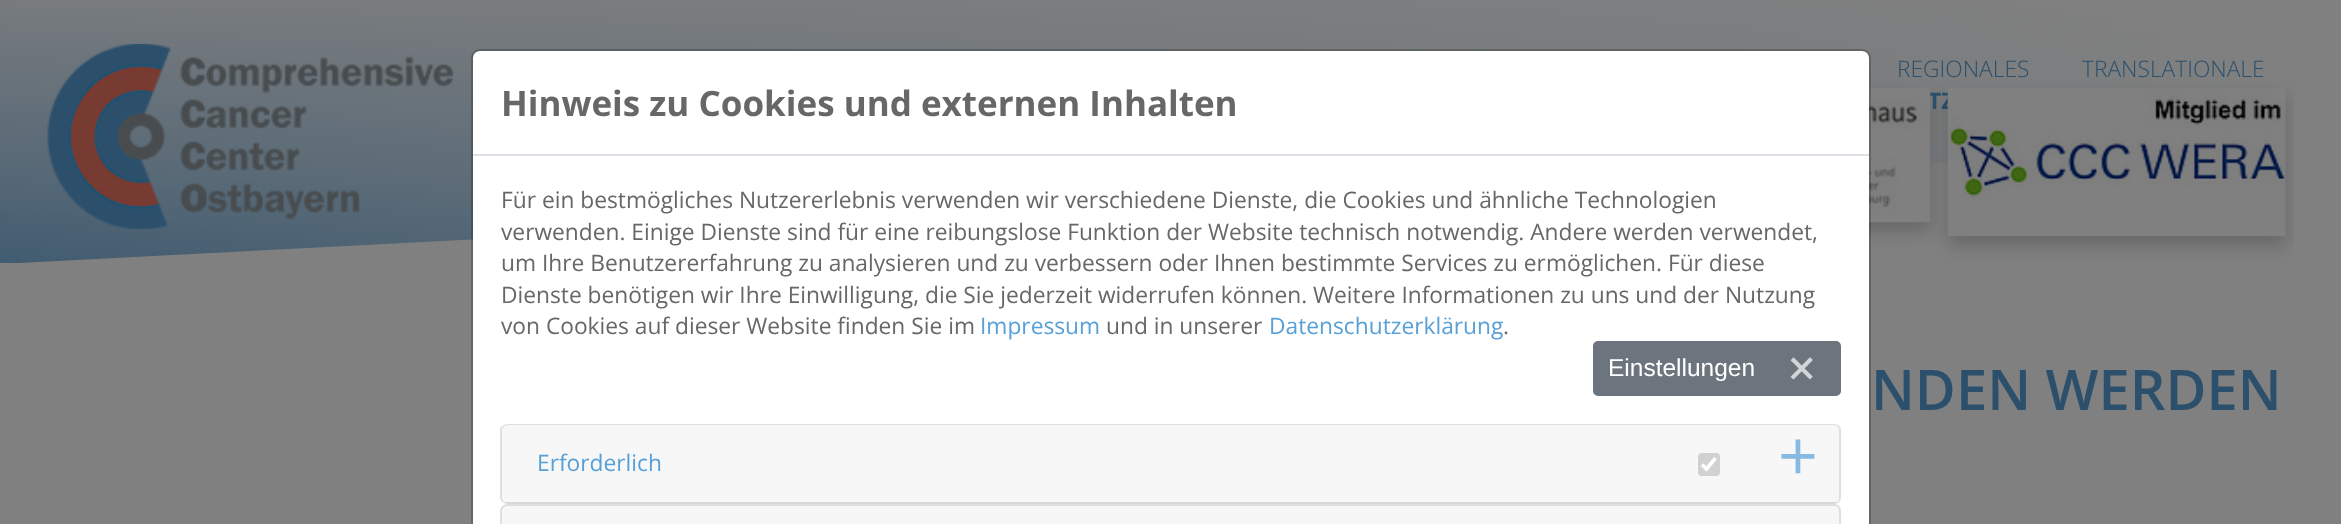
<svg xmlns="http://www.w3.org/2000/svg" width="2341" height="524">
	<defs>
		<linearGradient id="g1" gradientUnits="userSpaceOnUse" x1="0" y1="131" x2="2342" y2="131"><stop offset="0" stop-color="#2C506C" /><stop offset="1" stop-color="#808080" /></linearGradient>
		<linearGradient id="g2" gradientUnits="userSpaceOnUse" x1="1171" y1="0" x2="1171" y2="350"><stop offset="0" stop-color="#808080" stop-opacity="0.9" /><stop offset="0.5" stop-color="#808080" stop-opacity="0.5" /><stop offset="1" stop-color="#808080" stop-opacity="0" /></linearGradient>
		<clipPath id="clip1"><rect x="0" y="0" width="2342" height="263" /></clipPath>
		<clipPath id="clip2"><rect x="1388" y="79" width="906" height="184" /></clipPath>
	</defs>
	<rect width="100%" height="100%" fill="#808080" />
	<rect x="0" y="0" width="2272" height="263" fill="url(#g1)" />
	<rect x="0" y="0" width="2272" height="263" fill="url(#g2)" />
	<g clip-path="url(#clip1)">
		<path d="M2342 264H0L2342 142Z" fill="#808080" />
	</g>
	<rect x="1661" y="96" width="269" height="135" fill="#000000" fill-opacity="0.2" filter="blur(9px)" />
	<path d="M480 51H1862C1866 51 1869 54 1869 58V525H473V58C473 54 476 51 480 51Z" fill="#FFFFFF" />
	<text x="1928" y="109" font-family="Open Sans" font-size="22.75" font-weight="700" fill="#2C506C">TZ</text>
	<image x="1869" y="87" width="62" height="136" href="assets/img2.png" />
	<rect x="472" y="50" width="1398" height="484" rx="8" fill="none" stroke="#000000" stroke-opacity="0.2" stroke-width="2" />
	<rect x="473" y="154" width="1396" height="2" fill="#DEE2E6" />
	<text x="501" y="116" font-family="Open Sans" font-size="35" font-weight="700" fill="#676767">Hinweis zu Cookies und externen Inhalten</text>
	<g font-family="Open Sans" font-size="22.75" fill="#676767">
		<text x="501" y="208">Für ein bestmögliches Nutzererlebnis verwenden wir verschiedene Dienste, die Cookies und ähnliche Technologien</text>
		<text x="501" y="240">verwenden. Einige Dienste sind für eine reibungslose Funktion der Website technisch notwendig. Andere werden verwendet,</text>
		<text x="501" y="271">um Ihre Benutzererfahrung zu analysieren und zu verbessern oder Ihnen bestimmte Services zu ermöglichen. Für diese</text>
		<text x="501" y="303">Dienste benötigen wir Ihre Einwilligung, die Sie jederzeit widerrufen können. Weitere Informationen zu uns und der Nutzung</text>
		<text x="501" y="334">von Cookies auf dieser Website finden Sie im</text>
	</g>
	<text x="980" y="334" font-family="Open Sans" font-size="22.75" fill="#58A0D8">Impressum</text>
	<text x="1106" y="334" font-family="Open Sans" font-size="22.75" fill="#676767">und in unserer</text>
	<text x="1269" y="334" font-family="Open Sans" font-size="22.75" fill="#58A0D8">Datenschutzerklärung</text>
	<text x="1503" y="334" font-family="Open Sans" font-size="22.75" fill="#676767">.</text>
	<rect x="1594" y="342" width="246" height="53" rx="4" fill="#6C757D" stroke="#6C757D" stroke-width="2" />
	<text x="1608" y="376" font-family="Liberation Sans" font-size="24.5" fill="#FFFFFF">Einstellungen</text>
	<text x="1777" y="370" transform="rotate(45 1777 370)" font-family="Liberation Sans" font-size="56" fill="#D3D6D8">+</text>
	<path d="M508 424H1834C1838 424 1841 427 1841 430V497C1841 501 1838 504 1834 504H508C504 504 500 501 500 497V430C500 427 504 424 508 424ZM508 425H1834C1837 425 1839 428 1839 430V497C1839 501 1837 504 1834 504H508C505 504 502 501 502 497V430C502 428 505 425 508 425Z" fill="#DFDFDF" fill-rule="evenodd" />
	<path d="M508 425C505 425 502 428 502 430V497C502 501 505 504 508 504H1834C1836 504 1838 502 1839 499V430L1838 428C1838 426 1836 425 1834 425Z" fill="#000000" fill-opacity="0.03" />
	<path d="M508 504H1834C1835 504 1837 503 1838 502H504C505 503 506 504 508 504Z" fill="#D8D8D8" />
	<text x="537" y="471" font-family="Open Sans" font-size="22.75" fill="#58A0D8">Erforderlich</text>
	<text x="1778" y="481" font-family="Open Sans" font-size="70" fill="#88BAE1">+</text>
	<rect x="1698" y="453" width="22" height="23" rx="4" fill="#D1D1D1" />
	<path d="M1702 464.5L1706.5 469L1715.5 458" fill="none" stroke="#FFFFFF" stroke-width="3.6" />
	<path d="M508 504H1834C1838 504 1841 507 1841 511V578C1841 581 1838 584 1834 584H508C504 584 500 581 500 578V511C500 507 504 504 508 504ZM508 506H1834C1837 506 1839 508 1839 511V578C1839 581 1837 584 1834 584H508C505 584 502 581 502 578V511C502 508 505 506 508 506Z" fill="#DFDFDF" fill-rule="evenodd" />
	<path d="M507 506H1834C1837 506 1839 508 1839 511V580C1838 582 1836 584 1834 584H508C505 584 502 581 502 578V511C502 509 503 507 505 507Z" fill="#000000" fill-opacity="0.03" />
	<image x="47" y="43" width="407" height="187" href="assets/img1.png" />
	<g font-family="Open Sans" font-size="22.75" font-weight="300" fill="#2C506C">
		<text x="1897" y="77">REGIONALES</text>
		<text x="2082" y="77">TRANSLATIONALE</text>
	</g>
	<g clip-path="url(#clip2)">
		<rect x="1948" y="96" width="338" height="149" fill="#000000" fill-opacity="0.2" filter="blur(9px)" />
	</g>
	<image x="1947" y="87" width="339" height="150" href="assets/img3.png" />
	<text x="1871" y="410" font-family="Open Sans" font-size="56" font-weight="600" fill="#2C506C">NDEN WERDEN</text>
</svg>
